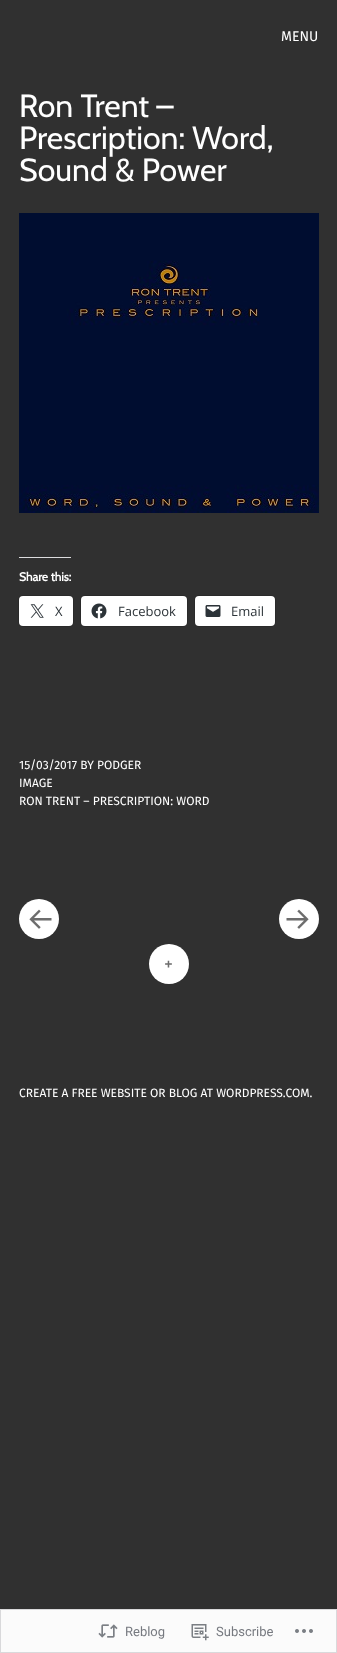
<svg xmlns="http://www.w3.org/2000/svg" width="337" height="1653">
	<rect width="100%" height="100%" fill="#303030" />
	<text x="281" y="41" font-family="Fira Sans" font-size="14" fill="#FFFFFF">MENU</text>
	<g font-family="Cabin" font-size="32" fill="#FFFFFF">
		<text x="19" y="117">Ron Trent –</text>
		<text x="19" y="149">Prescription: Word,</text>
		<text x="19" y="181">Sound &amp; Power</text>
	</g>
	<image x="19" y="213" width="300" height="300" href="assets/img1.png" />
	<rect x="19" y="557" width="52" height="1" fill="#DCDCDE" />
	<text x="19" y="581" font-family="Cabin" font-size="12" font-weight="700" fill="#FFFFFF">Share this:</text>
	<rect x="18.5" y="595.5" width="55" height="31" rx="4.5" fill="none" stroke="#2A2A2A" />
	<rect x="19" y="596" width="54" height="30" rx="4" fill="#FFFFFF" />
	<image x="30" y="604" width="14" height="14" href="assets/img2.png" />
	<text x="55" y="616" font-family="Open Sans" font-size="13" fill="#2C3338">X</text>
	<rect x="80.5" y="595.5" width="107" height="31" rx="4.5" fill="none" stroke="#2A2A2A" />
	<rect x="81" y="596" width="106" height="30" rx="4" fill="#FFFFFF" />
	<image x="91" y="603" width="16" height="16" href="assets/img3.png" />
	<text x="118" y="616" font-family="Open Sans" font-size="13" fill="#2C3338">Facebook</text>
	<rect x="194.5" y="595.5" width="81" height="31" rx="4.5" fill="none" stroke="#2A2A2A" />
	<rect x="195" y="596" width="80" height="30" rx="4" fill="#FFFFFF" />
	<image x="205" y="605" width="16" height="12" href="assets/img4.png" />
	<text x="231" y="616" font-family="Open Sans" font-size="13" fill="#2C3338">Email</text>
	<g font-family="Fira Sans" font-size="12" fill="#FFFFFF">
		<text x="19" y="769">15/03/2017 BY PODGER</text>
		<text x="19" y="787">IMAGE</text>
		<text x="19" y="805">RON TRENT – PRESCRIPTION: WORD</text>
	</g>
	<circle cx="39" cy="919" r="20" fill="#FFFFFF" />
	<image x="29" y="909" width="23" height="20" href="assets/img5.png" />
	<circle cx="299" cy="919" r="20" fill="#FFFFFF" />
	<image x="286" y="909" width="23" height="20" href="assets/img6.png" />
	<circle cx="169" cy="964" r="20" fill="#FFFFFF" />
	<text x="164" y="970" font-family="Fira Sans" font-size="18" fill="#6D6D6D">+</text>
	<text x="19" y="1097" font-family="Fira Sans" font-size="12" fill="#FFFFFF">CREATE A FREE WEBSITE OR BLOG AT WORDPRESS.COM.</text>
	<rect x="0.5" y="1609.5" width="336" height="43" fill="#FBFBFB" stroke="#D9D9DB" />
	<image x="98" y="1624" width="20" height="14" href="assets/img7.png" />
	<text x="125" y="1636" font-family="Roboto" font-size="13" fill="#777A80">Reblog</text>
	<image x="191" y="1624" width="18" height="17" href="assets/img8.png" />
	<text x="216" y="1636" font-family="Roboto" font-size="13" fill="#777A80">Subscribe</text>
	<image x="295" y="1629" width="18" height="4" href="assets/img9.png" />
</svg>
